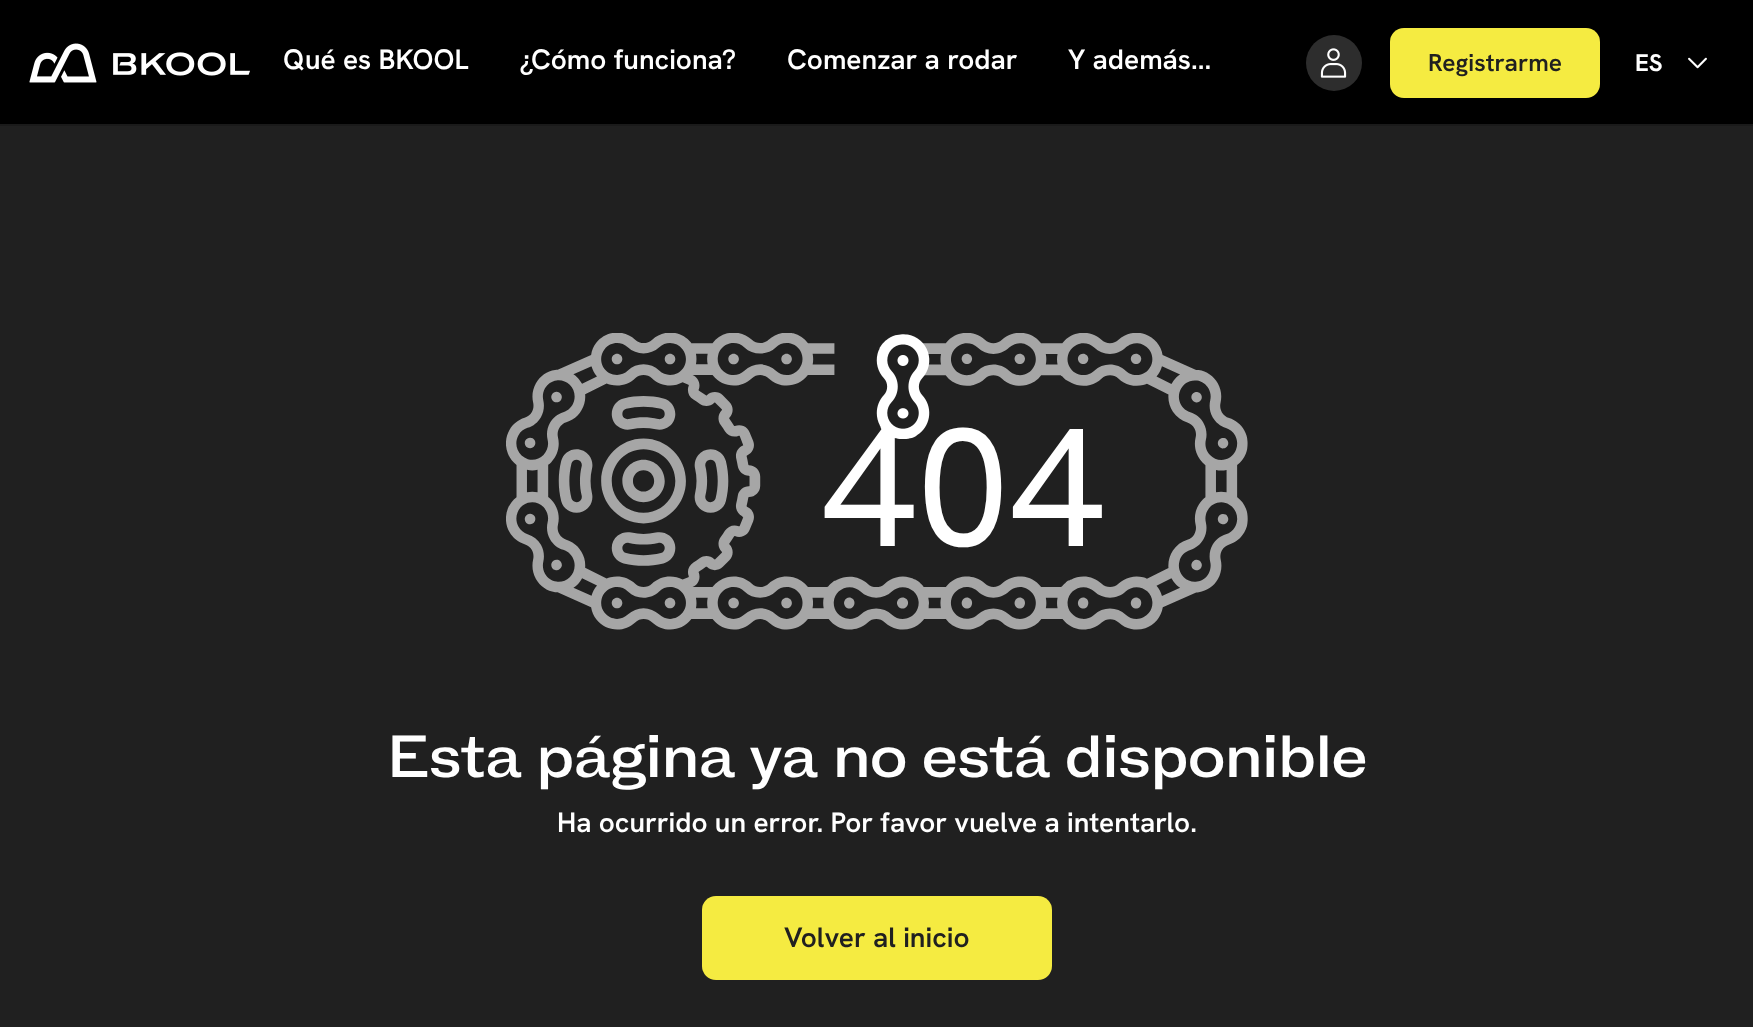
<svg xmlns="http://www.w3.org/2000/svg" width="1753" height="1027">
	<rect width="100%" height="100%" fill="#202020" />
	<rect x="0" y="0" width="1753" height="124" fill="#000000" />
	<rect x="0" y="124" width="1753" height="2" fill="#1A1A1A" />
	<image x="29" y="43" width="221" height="40" href="assets/img1.png" />
	<g font-family="Hanken Grotesk" font-size="28" font-weight="600" fill="#FFFFFF">
		<text x="283" y="69">Qué es BKOOL</text>
		<text x="520" y="69">¿Cómo funciona?</text>
		<text x="787" y="69">Comenzar a rodar</text>
		<text x="1068" y="69">Y además...</text>
	</g>
	<circle cx="1334" cy="63" r="28" fill="#2D2D2D" />
	<image x="1320" y="48" width="27" height="30" href="assets/img2.png" />
	<rect x="1390" y="28" width="210" height="70" rx="14" fill="#F5EB41" />
	<text x="1428" y="71" font-family="Hanken Grotesk" font-size="24.5" font-weight="600" fill="#202020">Registrarme</text>
	<text x="1635" y="71" font-family="Hanken Grotesk" font-size="24" font-weight="700" fill="#FFFFFF">ES</text>
	<image x="1688" y="57" width="19" height="12" href="assets/img3.png" />
	<image x="506" y="333" width="742" height="297" href="assets/img4.png" />
	<text x="822" y="546" font-family="Hanken Grotesk" font-size="168" fill="#FFFFFF">404</text>
	<image x="876" y="334" width="54" height="105" href="assets/img5.png" />
	<text x="387" y="777" font-family="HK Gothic" font-size="56" font-weight="600" fill="#FFFFFF">Esta página ya no está disponible</text>
	<text x="557" y="832" font-family="Hanken Grotesk" font-size="28" font-weight="600" fill="#FFFFFF">Ha ocurrido un error. Por favor vuelve a intentarlo.</text>
	<rect x="702" y="896" width="350" height="84" rx="14" fill="#F5EB41" />
	<text x="784" y="947" font-family="Hanken Grotesk" font-size="28" font-weight="600" fill="#202020">Volver al inicio</text>
</svg>
